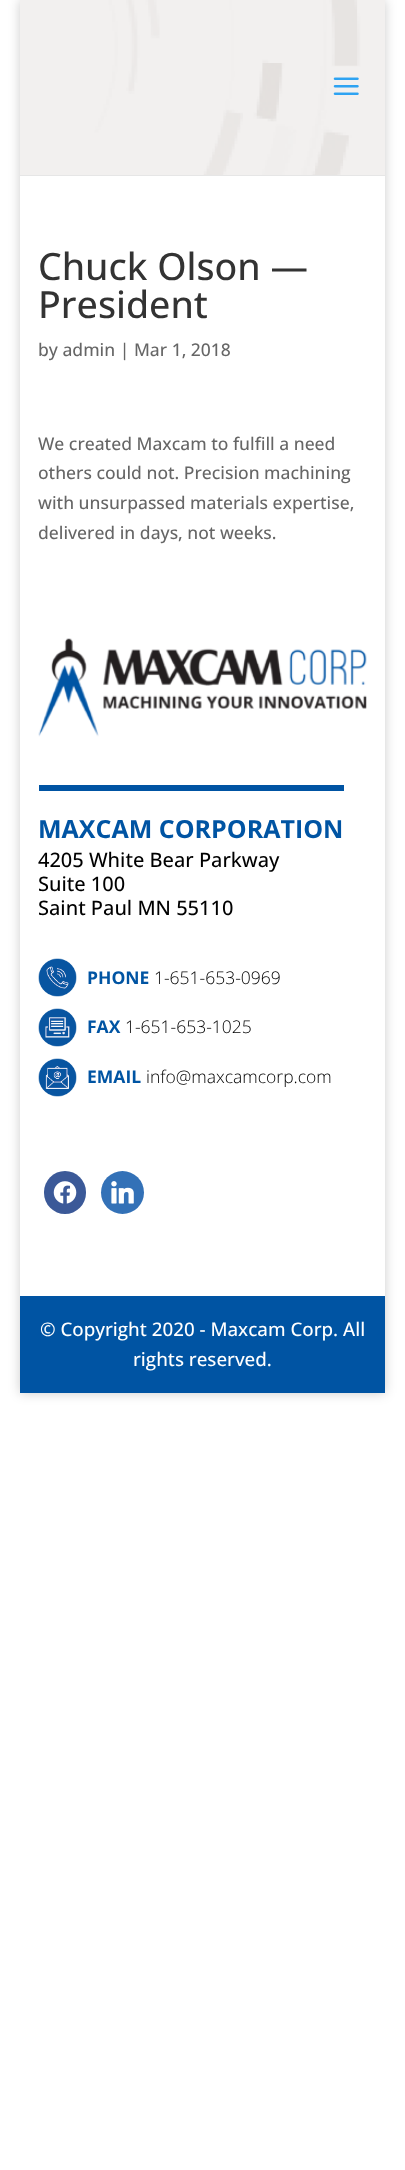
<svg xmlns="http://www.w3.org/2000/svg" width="405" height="2170">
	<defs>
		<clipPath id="clip1"><path d="M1 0H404V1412H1ZM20 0H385V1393H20Z" clip-rule="evenodd" /></clipPath>
	</defs>
	<rect width="100%" height="100%" fill="#FFFFFF" />
	<g clip-path="url(#clip1)">
		<rect x="20" y="0" width="365" height="1393" fill="#000000" fill-opacity="0.2" filter="blur(6px)" />
	</g>
	<rect x="20" y="175" width="365" height="1" fill="#E6E6E6" />
	<image x="20" y="0" width="365" height="175" href="assets/img1.png" />
	<image x="333" y="77" width="26" height="18" href="assets/img2.png" />
	<g font-family="Open Sans" font-size="37.5" font-weight="500" fill="#333333">
		<text x="38" y="280">Chuck Olson —</text>
		<text x="38" y="318">President</text>
	</g>
	<g font-family="Open Sans" font-size="17.5" font-weight="500" fill="#666666">
		<text x="38" y="356">by admin | Mar 1, 2018</text>
		<text x="38" y="450">We created Maxcam to fulfill a need</text>
		<text x="38" y="479">others could not. Precision machining</text>
		<text x="38" y="509">with unsurpassed materials expertise,</text>
		<text x="38" y="539">delivered in days, not weeks.</text>
	</g>
	<image x="38" y="638" width="329" height="99" href="assets/img3.png" />
	<rect x="39" y="785" width="305" height="6" fill="#0054A3" />
	<text x="38" y="838" font-family="Open Sans" font-size="25" font-weight="700" fill="#0054A3">MAXCAM CORPORATION</text>
	<g font-family="Open Sans" font-size="20" font-weight="500" fill="#000000">
		<text x="38" y="867">4205 White Bear Parkway</text>
		<text x="38" y="891">Suite 100</text>
		<text x="38" y="915">Saint Paul MN 55110</text>
	</g>
	<image x="38" y="958" width="39" height="39" href="assets/img4.png" />
	<text x="87" y="984" font-family="Open Sans" font-size="17.5" font-weight="700" fill="#0054A3">PHONE</text>
	<text x="154" y="984" font-family="Open Sans" font-size="17.5" font-weight="300" fill="#000000">1-651-653-0969</text>
	<image x="38" y="1008" width="39" height="39" href="assets/img5.png" />
	<text x="87" y="1033" font-family="Open Sans" font-size="17.5" font-weight="700" fill="#0054A3">FAX</text>
	<text x="125" y="1033" font-family="Open Sans" font-size="17.5" font-weight="300" fill="#000000">1-651-653-1025</text>
	<image x="38" y="1058" width="39" height="39" href="assets/img6.png" />
	<text x="87" y="1083" font-family="Open Sans" font-size="17.5" font-weight="700" fill="#0054A3">EMAIL</text>
	<text x="146" y="1083" font-family="Open Sans" font-size="17.5" font-weight="300" fill="#000000">info@maxcamcorp.com</text>
	<rect x="44" y="1171" width="42" height="43" rx="21" fill="#3B5998" />
	<image x="53" y="1181" width="24" height="23" href="assets/img7.png" />
	<circle cx="122.5" cy="1192.5" r="21.5" fill="#3371B7" />
	<image x="111" y="1181" width="23" height="23" href="assets/img8.png" />
	<rect x="20" y="1296" width="365" height="97" fill="#0054A3" />
	<g font-family="Open Sans" font-size="18.75" font-weight="500" fill="#FFFFFF">
		<text x="40" y="1336">© Copyright 2020 - Maxcam Corp. All</text>
		<text x="133" y="1366">rights reserved.</text>
	</g>
</svg>
